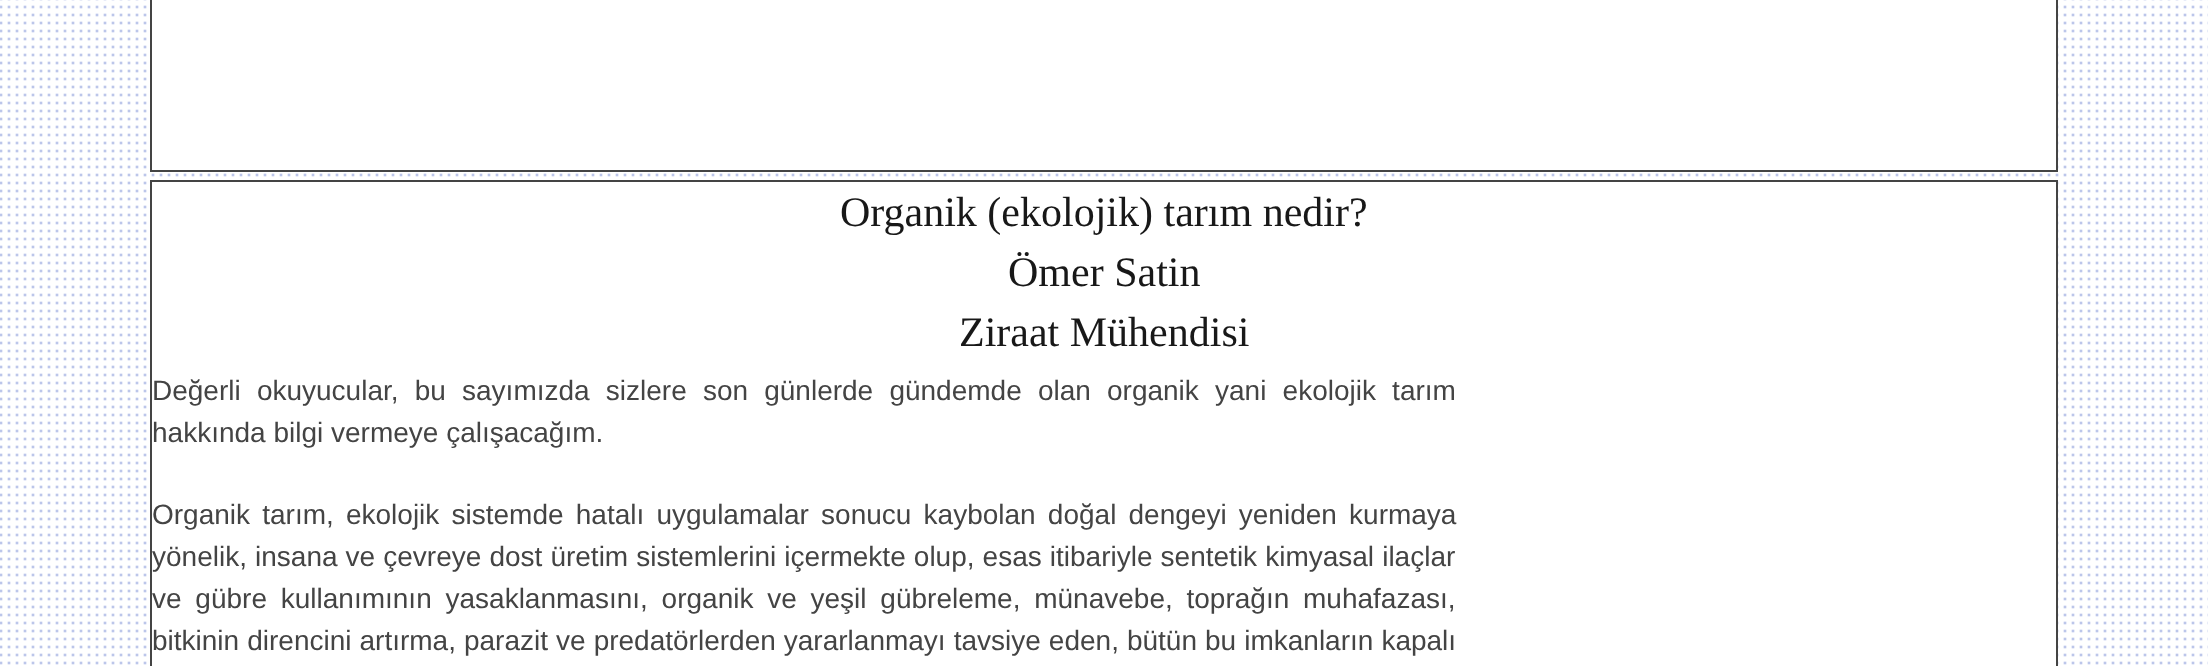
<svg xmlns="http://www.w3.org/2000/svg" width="2208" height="666">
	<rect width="100%" height="100%" fill="#FFFFFF" />
	<image x="0" y="0" width="2208" height="665" href="assets/img1.png" />
	<rect x="152" y="0" width="1904" height="169" fill="#FFFFFF" />
	<rect x="151" y="-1" width="1906" height="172" fill="none" stroke="#444444" stroke-width="2" />
	<rect x="152" y="182" width="1904" height="483" fill="#FFFFFF" />
	<rect x="151" y="181" width="1906" height="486" fill="none" stroke="#444444" stroke-width="2" />
	<g font-family="Liberation Serif" font-size="42" fill="#181818">
		<text x="840" y="226">Organik (ekolojik) tarım nedir?</text>
		<text x="1008" y="286">Ömer Satin</text>
		<text x="959" y="346">Ziraat Mühendisi</text>
	</g>
	<g font-family="Liberation Sans" font-size="28" fill="#444444">
		<text x="152" y="400" word-spacing="8.4">Değerli okuyucular, bu sayımızda sizlere son günlerde gündemde olan organik yani ekolojik tarım</text>
		<text x="152" y="442">hakkında bilgi vermeye çalışacağım.</text>
		<text x="152" y="524" word-spacing="4.4">Organik tarım, ekolojik sistemde hatalı uygulamalar sonucu kaybolan doğal dengeyi yeniden kurmaya</text>
		<text x="152" y="566" word-spacing="0.3">yönelik, insana ve çevreye dost üretim sistemlerini içermekte olup, esas itibariyle sentetik kimyasal ilaçlar</text>
		<text x="152" y="608" word-spacing="6">ve gübre kullanımının yasaklanmasını, organik ve yeşil gübreleme, münavebe, toprağın muhafazası,</text>
		<text x="152" y="650" word-spacing="0.25">bitkinin direncini artırma, parazit ve predatörlerden yararlanmayı tavsiye eden, bütün bu imkanların kapalı</text>
	</g>
</svg>
